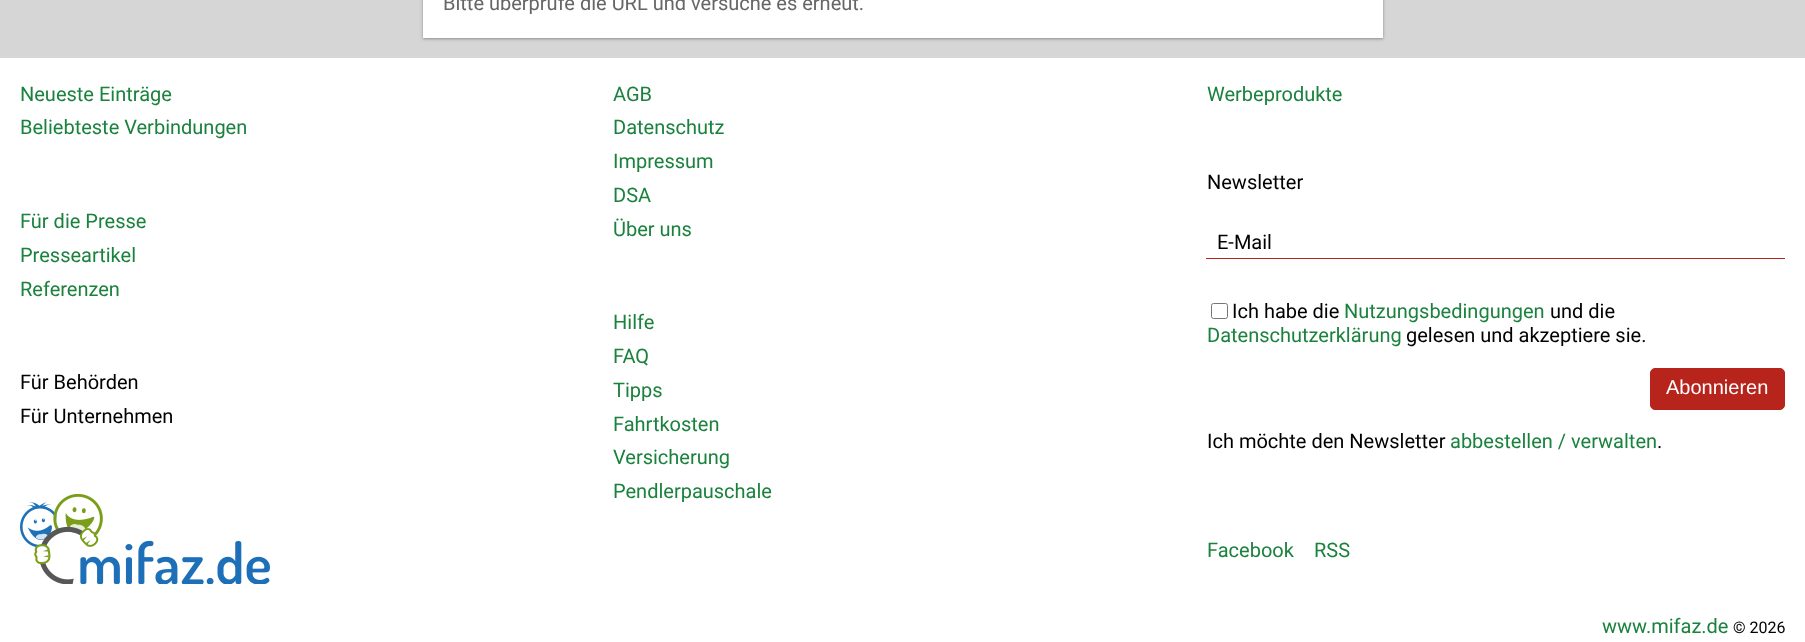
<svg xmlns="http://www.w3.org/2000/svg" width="1805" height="642">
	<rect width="100%" height="100%" fill="#D6D6D6" />
	<rect x="423" y="-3" width="960" height="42" fill="#000000" fill-opacity="0.24" filter="blur(1px)" />
	<rect x="423" y="-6" width="960" height="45" fill="#000000" fill-opacity="0.12" filter="blur(2px)" />
	<rect x="423" y="0" width="960" height="38" fill="#FFFFFF" />
	<text x="443" y="10" font-family="Roboto" font-size="20" fill="#666666">Bitte überprüfe die URL und versuche es erneut.</text>
	<rect x="0" y="58" width="1805" height="584" fill="#FFFFFF" />
	<g font-family="Roboto" font-size="20" fill="#1B823E">
		<text x="20" y="101">Neueste Einträge</text>
		<text x="20" y="134">Beliebteste Verbindungen</text>
		<text x="20" y="228">Für die Presse</text>
		<text x="20" y="262">Presseartikel</text>
		<text x="20" y="296">Referenzen</text>
	</g>
	<g font-family="Roboto" font-size="20" fill="#000000">
		<text x="20" y="389">Für Behörden</text>
		<text x="20" y="423">Für Unternehmen</text>
	</g>
	<image x="20" y="494" width="250" height="90" href="assets/img1.png" />
	<g font-family="Roboto" font-size="20" fill="#1B823E">
		<text x="613" y="101">AGB</text>
		<text x="613" y="134">Datenschutz</text>
		<text x="613" y="168">Impressum</text>
		<text x="613" y="202">DSA</text>
		<text x="613" y="236">Über uns</text>
		<text x="613" y="329">Hilfe</text>
		<text x="613" y="363">FAQ</text>
		<text x="613" y="397">Tipps</text>
		<text x="613" y="431">Fahrtkosten</text>
		<text x="613" y="464">Versicherung</text>
		<text x="613" y="498">Pendlerpauschale</text>
		<text x="1207" y="101">Werbeprodukte</text>
	</g>
	<g font-family="Roboto" font-size="20" fill="#000000">
		<text x="1207" y="189">Newsletter</text>
		<text x="1217" y="249">E-Mail</text>
	</g>
	<rect x="1206" y="258" width="579" height="1" fill="#B7241B" />
	<rect x="1211.5" y="303.5" width="16" height="15" rx="2" fill="none" stroke="#767676" />
	<text x="1232" y="318" font-family="Roboto" font-size="20" fill="#000000">Ich habe die</text>
	<text x="1344" y="318" font-family="Roboto" font-size="20" fill="#1B823E">Nutzungsbedingungen</text>
	<text x="1550" y="318" font-family="Roboto" font-size="20" fill="#000000">und die</text>
	<text x="1207" y="342" font-family="Roboto" font-size="20" fill="#1B823E">Datenschutzerklärung</text>
	<text x="1406" y="342" font-family="Roboto" font-size="20" fill="#000000">gelesen und akzeptiere sie.</text>
	<rect x="1650.5" y="368.5" width="134" height="41" rx="4.5" fill="#B7241B" stroke="#B7241B" />
	<text x="1666" y="394" font-family="Liberation Sans" font-size="20" fill="#FFFFFF">Abonnieren</text>
	<text x="1207" y="448" font-family="Roboto" font-size="20" fill="#000000">Ich möchte den Newsletter</text>
	<text x="1450" y="448" font-family="Roboto" font-size="20" fill="#1B823E">abbestellen / verwalten</text>
	<text x="1657" y="448" font-family="Roboto" font-size="20" fill="#000000">.</text>
	<g font-family="Roboto" font-size="20" fill="#1B823E">
		<text x="1207" y="557">Facebook</text>
		<text x="1314" y="557">RSS</text>
		<text x="1602" y="633">www.mifaz.de</text>
	</g>
	<text x="1733" y="633" font-family="Roboto" font-size="16" fill="#000000">© 2026</text>
</svg>
